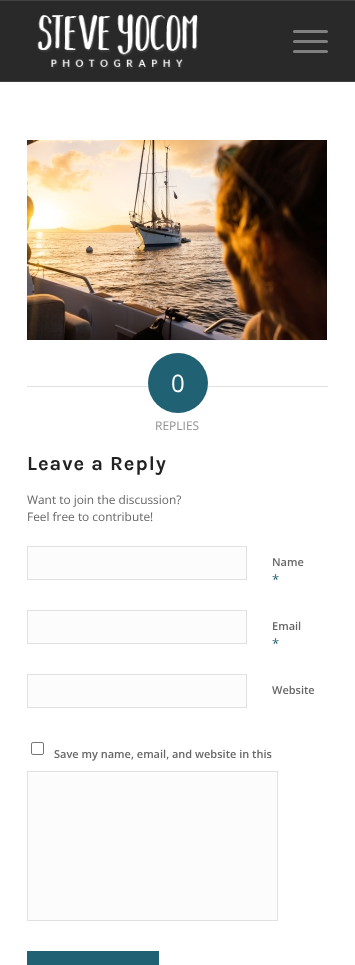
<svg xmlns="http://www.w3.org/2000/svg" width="355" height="965">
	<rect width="100%" height="100%" fill="#FFFFFF" />
	<rect x="0" y="0" width="355" height="1" fill="#424242" />
	<rect x="0" y="81" width="355" height="1" fill="#424242" />
	<rect x="0" y="1" width="355" height="80" fill="#292929" />
	<image x="37" y="14" width="162" height="55" href="assets/img1.png" />
	<rect x="293" y="40" width="35" height="3" rx="1.5" fill="#808080" />
	<rect x="293" y="30" width="35" height="3" rx="1.5" fill="#808080" />
	<rect x="293" y="50" width="35" height="3" rx="1.5" fill="#808080" />
	<image x="27" y="140" width="300" height="200" href="assets/img2.png" />
	<rect x="27" y="386" width="126" height="1" fill="#E1E1E1" />
	<rect x="202" y="386" width="126" height="1" fill="#E1E1E1" />
	<circle cx="178" cy="383" r="30" fill="#206273" />
	<text x="171" y="392" font-family="Open Sans" font-size="24" fill="#FFFFFF">0</text>
	<text x="155" y="430" font-family="Open Sans" font-size="12" fill="#919191">REPLIES</text>
	<text x="27" y="470" font-family="Karla" font-size="20" font-weight="700" letter-spacing="1" fill="#222222">Leave a Reply</text>
	<g font-family="Open Sans" font-size="11.9" fill="#666666">
		<text x="27" y="504">Want to join the discussion?</text>
		<text x="27" y="521">Feel free to contribute!</text>
	</g>
	<rect x="27.5" y="546.5" width="219" height="33" fill="#FCFCFC" stroke="#E1E1E1" />
	<text x="272" y="566" font-family="Open Sans" font-size="11" font-weight="600" fill="#666666">Name</text>
	<text x="272" y="584" font-family="Open Sans" font-size="13" fill="#206273">*</text>
	<rect x="27.5" y="610.5" width="219" height="33" fill="#FCFCFC" stroke="#E1E1E1" />
	<text x="272" y="630" font-family="Open Sans" font-size="11" font-weight="600" fill="#666666">Email</text>
	<text x="272" y="648" font-family="Open Sans" font-size="13" fill="#206273">*</text>
	<rect x="27.5" y="674.5" width="219" height="33" fill="#FCFCFC" stroke="#E1E1E1" />
	<text x="272" y="694" font-family="Open Sans" font-size="11" font-weight="600" fill="#666666">Website</text>
	<rect x="31.5" y="742.5" width="12" height="12" rx="1.5" fill="none" stroke="#767676" />
	<text x="54" y="758" font-family="Open Sans" font-size="11" font-weight="600" fill="#666666">Save my name, email, and website in this</text>
	<rect x="27.5" y="771.5" width="250" height="149" fill="#FCFCFC" stroke="#E1E1E1" />
	<rect x="27" y="951" width="132" height="14" fill="#206273" />
</svg>
